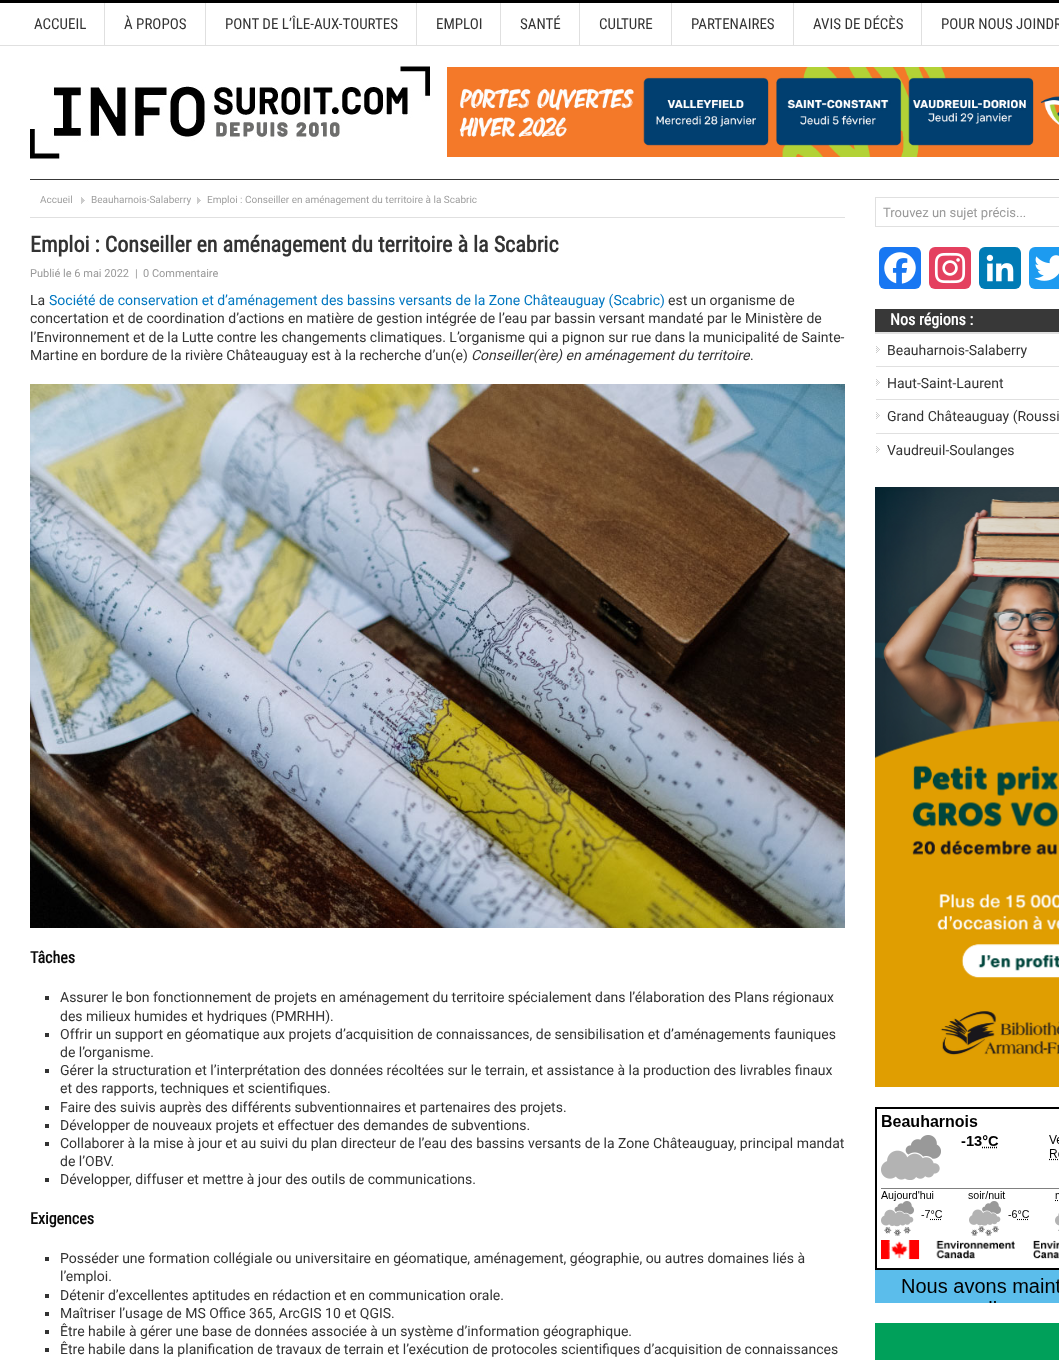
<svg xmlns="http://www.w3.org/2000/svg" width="1059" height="1360">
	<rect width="100%" height="100%" fill="#FFFFFF" />
	<rect x="0" y="0" width="1059" height="3" fill="#000000" />
	<rect x="0" y="45" width="1059" height="1" fill="#E0E0E0" />
	<rect x="104" y="3" width="1" height="42" fill="#E0E0E0" />
	<text x="34" y="29" font-family="Roboto Condensed" font-size="15" fill="#333333">ACCUEIL</text>
	<rect x="205" y="3" width="1" height="42" fill="#E0E0E0" />
	<text x="124" y="29" font-family="Roboto Condensed" font-size="15" fill="#333333">À PROPOS</text>
	<rect x="416" y="3" width="1" height="42" fill="#E0E0E0" />
	<text x="225" y="29" font-family="Roboto Condensed" font-size="15" fill="#333333">PONT DE L’ÎLE-AUX-TOURTES</text>
	<rect x="500" y="3" width="1" height="42" fill="#E0E0E0" />
	<text x="436" y="29" font-family="Roboto Condensed" font-size="15" fill="#333333">EMPLOI</text>
	<rect x="579" y="3" width="1" height="42" fill="#E0E0E0" />
	<text x="520" y="29" font-family="Roboto Condensed" font-size="15" fill="#333333">SANTÉ</text>
	<rect x="671" y="3" width="1" height="42" fill="#E0E0E0" />
	<text x="599" y="29" font-family="Roboto Condensed" font-size="15" fill="#333333">CULTURE</text>
	<rect x="793" y="3" width="1" height="42" fill="#E0E0E0" />
	<text x="691" y="29" font-family="Roboto Condensed" font-size="15" fill="#333333">PARTENAIRES</text>
	<rect x="921" y="3" width="1" height="42" fill="#E0E0E0" />
	<g font-family="Roboto Condensed" font-size="15" fill="#333333">
		<text x="813" y="29">AVIS DE DÉCÈS</text>
		<text x="941" y="29">POUR NOUS JOINDR</text>
	</g>
	<rect x="30" y="179" width="1029" height="1" fill="#383838" />
	<image x="30" y="66" width="400" height="93" href="assets/img1.png" />
	<image x="447" y="67" width="612" height="90" href="assets/img2.png" />
	<rect x="30" y="217" width="815" height="1" fill="#E0E0E0" />
	<text x="40" y="203" font-family="Roboto" font-size="10" fill="#9F9F9F">Accueil</text>
	<image x="81" y="197" width="4" height="7" href="assets/img3.png" />
	<text x="91" y="203" font-family="Roboto" font-size="10" fill="#9F9F9F">Beauharnois-Salaberry</text>
	<image x="197" y="197" width="4" height="7" href="assets/img3.png" />
	<text x="207" y="203" font-family="Roboto" font-size="10" fill="#9F9F9F">Emploi : Conseiller en aménagement du territoire à la Scabric</text>
	<text x="30" y="252" font-family="Roboto Condensed" font-size="22" font-weight="700" fill="#333333">Emploi : Conseiller en aménagement du territoire à la Scabric</text>
	<g font-family="Roboto" font-size="11" fill="#999999">
		<text x="30" y="277">Publié le 6 mai 2022</text>
		<text x="135" y="277">|</text>
		<text x="143" y="277">0 Commentaire</text>
	</g>
	<text x="30" y="305" font-family="Roboto" font-size="14" fill="#333333">La</text>
	<text x="49" y="305" font-family="Roboto" font-size="14" fill="#0177C1">Société de conservation et d’aménagement des bassins versants de la Zone Châteauguay (Scabric)</text>
	<g font-family="Roboto" font-size="14" fill="#333333">
		<text x="668" y="305">est un organisme de</text>
		<text x="30" y="323">concertation et de coordination d’actions en matière de gestion intégrée de l’eau par bassin versant mandaté par le Ministère de</text>
		<text x="30" y="342">l’Environnement et de la Lutte contre les changements climatiques. L’organisme qui a pignon sur rue dans la municipalité de Sainte-</text>
		<text x="30" y="360">Martine en bordure de la rivière Châteauguay est à la recherche d’un(e)</text>
	</g>
	<text x="471" y="360" font-family="Roboto" font-size="14" font-style="italic" fill="#333333">Conseiller(ère) en aménagement du territoire</text>
	<text x="750" y="360" font-family="Roboto" font-size="14" fill="#333333">.</text>
	<image x="30" y="384" width="815" height="544" href="assets/img4.png" />
	<text x="30" y="963" font-family="Roboto Condensed" font-size="16" font-weight="700" fill="#0A0A0A">Tâches</text>
	<rect x="45" y="996" width="4" height="4" fill="#333333" />
	<g font-family="Roboto" font-size="14" fill="#333333">
		<text x="60" y="1002">Assurer le bon fonctionnement de projets en aménagement du territoire spécialement dans l’élaboration des Plans régionaux</text>
		<text x="60" y="1021">des milieux humides et hydriques (PMRHH).</text>
	</g>
	<rect x="45" y="1033" width="4" height="4" fill="#333333" />
	<g font-family="Roboto" font-size="14" fill="#333333">
		<text x="60" y="1039">Offrir un support en géomatique aux projets d’acquisition de connaissances, de sensibilisation et d’aménagements fauniques</text>
		<text x="60" y="1057">de l’organisme.</text>
	</g>
	<rect x="45" y="1069" width="4" height="4" fill="#333333" />
	<g font-family="Roboto" font-size="14" fill="#333333">
		<text x="60" y="1075">Gérer la structuration et l’interprétation des données récoltées sur le terrain, et assistance à la production des livrables finaux</text>
		<text x="60" y="1093">et des rapports, techniques et scientifiques.</text>
	</g>
	<rect x="45" y="1106" width="4" height="4" fill="#333333" />
	<text x="60" y="1112" font-family="Roboto" font-size="14" fill="#333333">Faire des suivis auprès des différents subventionnaires et partenaires des projets.</text>
	<rect x="45" y="1124" width="4" height="4" fill="#333333" />
	<text x="60" y="1130" font-family="Roboto" font-size="14" fill="#333333">Développer de nouveaux projets et effectuer des demandes de subventions.</text>
	<rect x="45" y="1142" width="4" height="4" fill="#333333" />
	<g font-family="Roboto" font-size="14" fill="#333333">
		<text x="60" y="1148">Collaborer à la mise à jour et au suivi du plan directeur de l’eau des bassins versants de la Zone Châteauguay, principal mandat</text>
		<text x="60" y="1166">de l’OBV.</text>
	</g>
	<rect x="45" y="1178" width="4" height="4" fill="#333333" />
	<text x="60" y="1184" font-family="Roboto" font-size="14" fill="#333333">Développer, diffuser et mettre à jour des outils de communications.</text>
	<text x="30" y="1224" font-family="Roboto Condensed" font-size="16" font-weight="700" fill="#0A0A0A">Exigences</text>
	<rect x="45" y="1257" width="4" height="4" fill="#333333" />
	<g font-family="Roboto" font-size="14" fill="#333333">
		<text x="60" y="1263">Posséder une formation collégiale ou universitaire en géomatique, aménagement, géographie, ou autres domaines liés à</text>
		<text x="60" y="1281">l’emploi.</text>
	</g>
	<rect x="45" y="1294" width="4" height="4" fill="#333333" />
	<text x="60" y="1300" font-family="Roboto" font-size="14" fill="#333333">Détenir d’excellentes aptitudes en rédaction et en communication orale.</text>
	<rect x="45" y="1312" width="4" height="4" fill="#333333" />
	<text x="60" y="1318" font-family="Roboto" font-size="14" fill="#333333">Maîtriser l’usage de MS Office 365, ArcGIS 10 et QGIS.</text>
	<rect x="45" y="1330" width="4" height="4" fill="#333333" />
	<text x="60" y="1336" font-family="Roboto" font-size="14" fill="#333333">Être habile à gérer une base de données associée à un système d’information géographique.</text>
	<rect x="45" y="1348" width="4" height="4" fill="#333333" />
	<text x="60" y="1354" font-family="Roboto" font-size="14" fill="#333333">Être habile dans la planification de travaux de terrain et l’exécution de protocoles scientifiques d’acquisition de connaissances</text>
	<rect x="875.5" y="197.5" width="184" height="29" fill="none" stroke="#E0E0E0" />
	<text x="883" y="217" font-family="Roboto" font-size="13" fill="#999999">Trouvez un sujet précis...</text>
	<rect x="879" y="247" width="42" height="42" rx="6" fill="#1877F2" />
	<image x="884" y="252" width="32" height="32" href="assets/img5.png" />
	<rect x="929" y="247" width="42" height="42" rx="6" fill="#E4405F" />
	<image x="934" y="252" width="32" height="32" href="assets/img6.png" />
	<rect x="979" y="247" width="42" height="42" rx="6" fill="#007BB5" />
	<image x="986" y="254" width="28" height="28" href="assets/img7.png" />
	<rect x="1029" y="247" width="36" height="42" rx="6" fill="#1D9BF0" />
	<image x="1034" y="255" width="25" height="26" href="assets/img8.png" />
	<rect x="875" y="309" width="184" height="23" fill="#383838" />
	<rect x="875" y="332" width="184" height="2" fill="#E0E0E0" />
	<text x="890" y="325" font-family="Roboto Condensed" font-size="16" font-weight="700" fill="#FFFFFF">Nos régions :</text>
	<image x="876" y="346" width="4" height="7" href="assets/img9.png" />
	<text x="887" y="355" font-family="Roboto" font-size="14" fill="#333333">Beauharnois-Salaberry</text>
	<image x="876" y="379" width="4" height="7" href="assets/img9.png" />
	<rect x="876" y="366" width="183" height="1" fill="#E0E0E0" />
	<text x="887" y="388" font-family="Roboto" font-size="14" fill="#333333">Haut-Saint-Laurent</text>
	<image x="876" y="412" width="4" height="7" href="assets/img9.png" />
	<rect x="876" y="399" width="183" height="1" fill="#E0E0E0" />
	<text x="887" y="421" font-family="Roboto" font-size="14" fill="#333333">Grand Châteauguay (Roussi</text>
	<image x="876" y="446" width="4" height="7" href="assets/img9.png" />
	<rect x="876" y="433" width="183" height="1" fill="#E0E0E0" />
	<text x="887" y="455" font-family="Roboto" font-size="14" fill="#333333">Vaudreuil-Soulanges</text>
	<image x="875" y="487" width="184" height="600" href="assets/img10.png" />
	<image x="875" y="1107" width="184" height="196" href="assets/img11.png" />
	<rect x="875" y="1323" width="184" height="37" fill="#00A05A" />
</svg>
